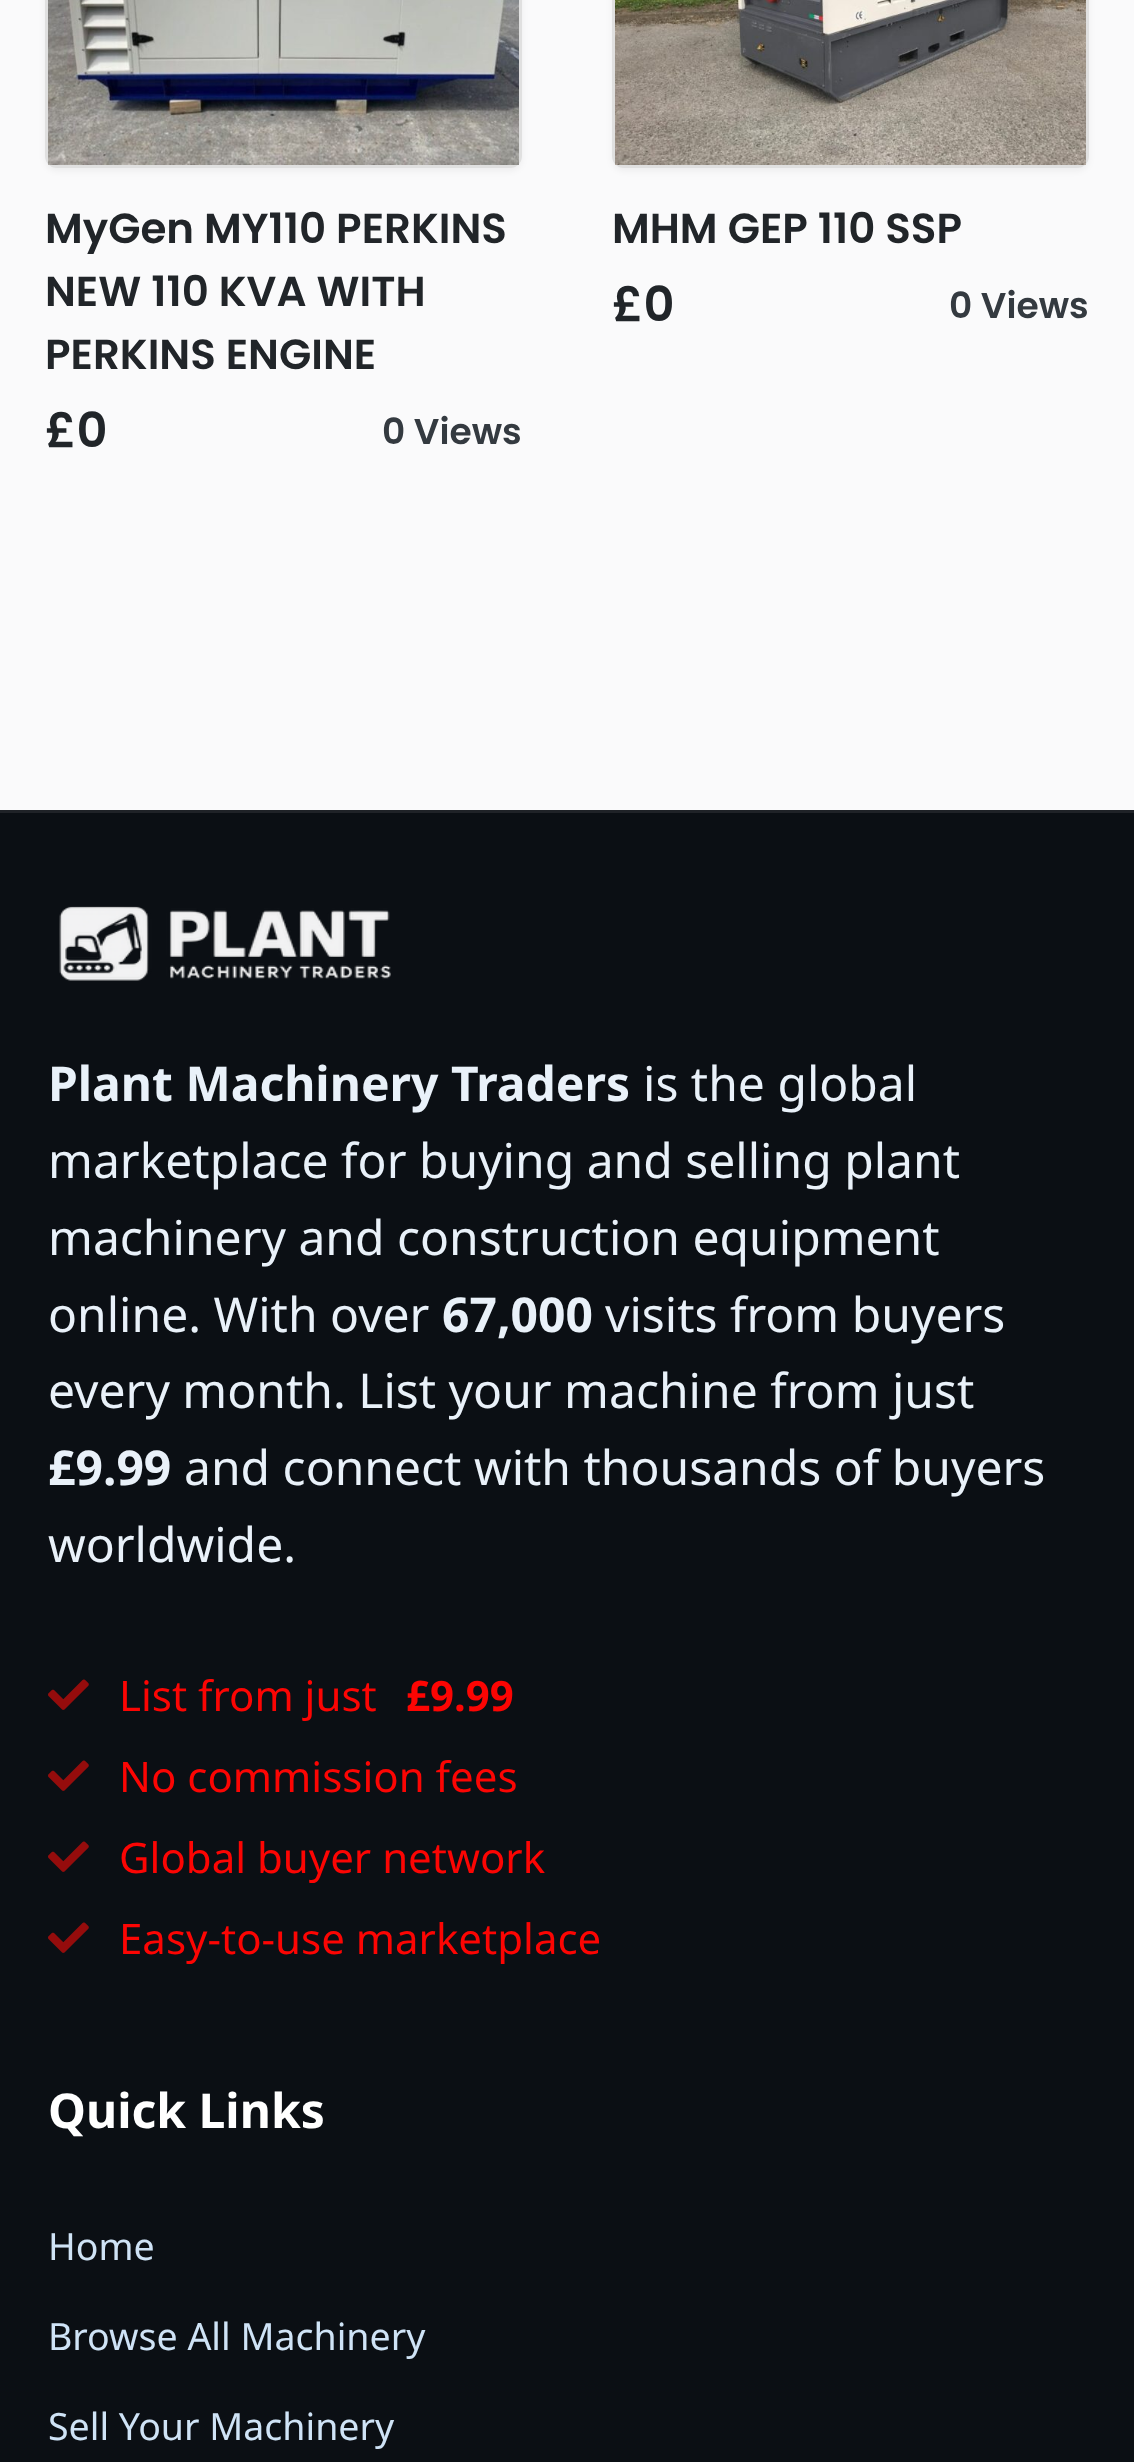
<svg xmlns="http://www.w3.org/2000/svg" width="1134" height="2462">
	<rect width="100%" height="100%" fill="#FAFAFB" />
	<rect x="45" y="-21" width="477" height="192" rx="12" fill="#000000" fill-opacity="0.05" filter="blur(3px)" />
	<rect x="46.5" y="-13.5" width="474" height="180" rx="10.5" fill="none" stroke="#E0E0E0" stroke-width="3" />
	<image x="48" y="0" width="471" height="165" href="assets/img1.png" />
	<g font-family="Poppins" font-size="42" font-weight="600" fill="#212529">
		<text x="45" y="243">MyGen MY110 PERKINS</text>
		<text x="45" y="306">NEW 110 KVA WITH</text>
		<text x="45" y="369">PERKINS ENGINE</text>
	</g>
	<text x="45" y="447" font-family="Poppins" font-size="48" font-weight="600" fill="#212529">£0</text>
	<text x="382" y="444" font-family="Poppins" font-size="36" font-weight="600" fill="#343A40">0 Views</text>
	<rect x="612" y="-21" width="477" height="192" rx="12" fill="#000000" fill-opacity="0.05" filter="blur(3px)" />
	<rect x="613.5" y="-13.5" width="474" height="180" rx="10.5" fill="none" stroke="#E0E0E0" stroke-width="3" />
	<image x="615" y="0" width="471" height="165" href="assets/img2.png" />
	<text x="612" y="243" font-family="Poppins" font-size="42" font-weight="600" fill="#212529">MHM GEP 110 SSP</text>
	<text x="612" y="321" font-family="Poppins" font-size="48" font-weight="600" fill="#212529">£0</text>
	<text x="949" y="318" font-family="Poppins" font-size="36" font-weight="600" fill="#343A40">0 Views</text>
	<rect x="0" y="813" width="1134" height="1649" fill="#0B0F14" />
	<rect x="0" y="810" width="1134" height="3" fill="#1F2227" />
	<image x="59" y="906" width="332" height="75" href="assets/img3.png" />
	<text x="48" y="1101" font-family="Noto Sans" font-size="48" font-weight="700" fill="#E9F1F9">Plant Machinery Traders</text>
	<g font-family="Noto Sans" font-size="48" fill="#E9F1F9">
		<text x="643" y="1101">is the global</text>
		<text x="48" y="1178">marketplace for buying and selling plant</text>
		<text x="48" y="1255">machinery and construction equipment</text>
		<text x="48" y="1332">online. With over</text>
	</g>
	<text x="442" y="1332" font-family="Noto Sans" font-size="48" font-weight="700" fill="#E9F1F9">67,000</text>
	<g font-family="Noto Sans" font-size="48" fill="#E9F1F9">
		<text x="605" y="1332">visits from buyers</text>
		<text x="48" y="1408">every month. List your machine from just</text>
	</g>
	<text x="48" y="1485" font-family="Noto Sans" font-size="48" font-weight="700" fill="#E9F1F9">£9.99</text>
	<g font-family="Noto Sans" font-size="48" fill="#E9F1F9">
		<text x="184" y="1485">and connect with thousands of buyers</text>
		<text x="48" y="1562">worldwide.</text>
	</g>
	<image x="48" y="1679" width="41" height="31" href="assets/img4.png" />
	<text x="119" y="1711" font-family="Noto Sans" font-size="42" fill="#FC0503">List from just</text>
	<text x="406" y="1711" font-family="Noto Sans" font-size="42" font-weight="700" fill="#FC0503">£9.99</text>
	<image x="48" y="1760" width="41" height="31" href="assets/img4.png" />
	<text x="119" y="1792" font-family="Noto Sans" font-size="42" fill="#FC0503">No commission fees</text>
	<image x="48" y="1841" width="41" height="31" href="assets/img4.png" />
	<text x="119" y="1873" font-family="Noto Sans" font-size="42" fill="#FC0503">Global buyer network</text>
	<image x="48" y="1922" width="41" height="31" href="assets/img4.png" />
	<text x="119" y="1954" font-family="Noto Sans" font-size="42" fill="#FC0503">Easy-to-use marketplace</text>
	<text x="48" y="2128" font-family="Noto Sans" font-size="48" font-weight="700" fill="#FFFFFF">Quick Links</text>
	<g font-family="Noto Sans" font-size="37.5" fill="#CFE3F6">
		<text x="48" y="2260">Home</text>
		<text x="48" y="2350">Browse All Machinery</text>
		<text x="48" y="2440">Sell Your Machinery</text>
	</g>
</svg>
